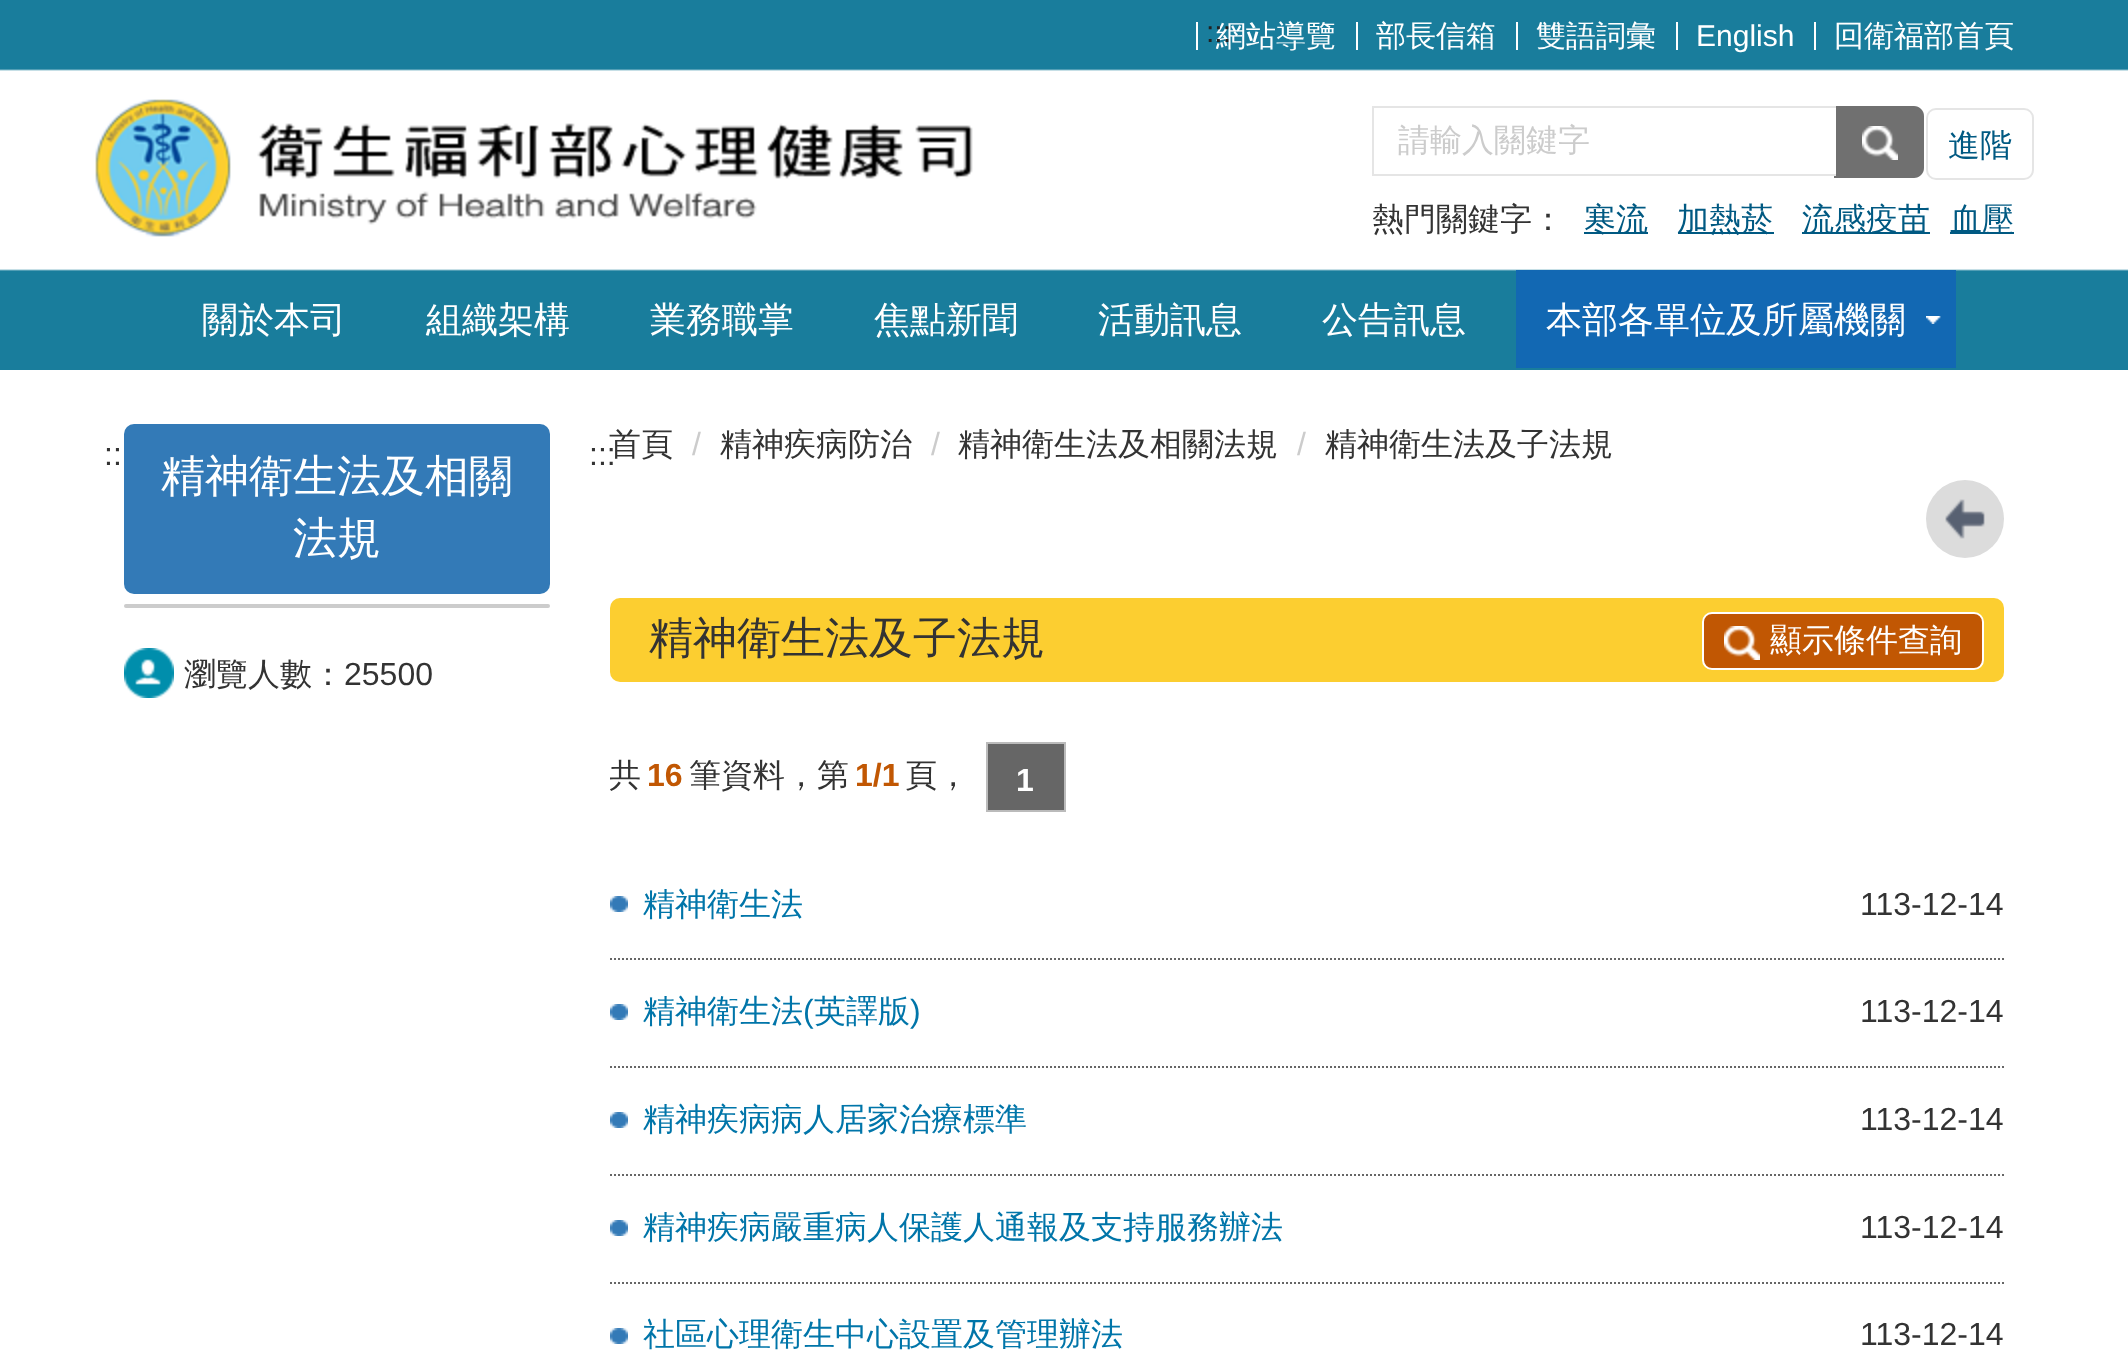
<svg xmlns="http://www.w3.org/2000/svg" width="2128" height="1368">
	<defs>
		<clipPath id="clip1"><rect x="610" y="742" width="1394" height="70" /></clipPath>
	</defs>
	<rect width="100%" height="100%" fill="#FFFFFF" />
	<image x="0" y="0" width="2128" height="370" href="assets/img1.png" />
	<image x="95" y="99" width="878" height="138" href="assets/img2.png" />
	<rect x="1196" y="22" width="2" height="28" fill="#FFFFFF" />
	<text x="1216" y="46" font-family="WenQuanYi Zen Hei" font-size="30" font-weight="500" fill="#FFFFFF">網站導覽</text>
	<rect x="1356" y="22" width="2" height="28" fill="#FFFFFF" />
	<text x="1376" y="46" font-family="WenQuanYi Zen Hei" font-size="30" font-weight="500" fill="#FFFFFF">部長信箱</text>
	<rect x="1516" y="22" width="2" height="28" fill="#FFFFFF" />
	<text x="1536" y="46" font-family="WenQuanYi Zen Hei" font-size="30" font-weight="500" fill="#FFFFFF">雙語詞彙</text>
	<rect x="1676" y="22" width="2" height="28" fill="#FFFFFF" />
	<text x="1696" y="46" font-family="Liberation Sans" font-size="30" fill="#FFFFFF">English</text>
	<rect x="1814" y="22" width="2" height="28" fill="#FFFFFF" />
	<text x="1834" y="46" font-family="WenQuanYi Zen Hei" font-size="30" font-weight="500" fill="#FFFFFF">回衛福部首頁</text>
	<text x="1206" y="42" font-family="Liberation Sans" font-size="30" fill="#222222">:::</text>
	<path d="M1834 106H1914C1919.5 106 1924 110.5 1924 116V168C1924 173.5 1919.5 178 1914 178H1834Z" fill="#707070" />
	<rect x="1834" y="108" width="2" height="66" fill="#FFFFFF" />
	<rect x="1372" y="106" width="464" height="2" fill="#E5E5E5" />
	<rect x="1372" y="174" width="464" height="2" fill="#E5E5E5" />
	<rect x="1372" y="106" width="2" height="70" fill="#E5E5E5" />
	<text x="1398" y="151" font-family="WenQuanYi Zen Hei" font-size="32" font-weight="500" fill="#CCCCCC">請輸入關鍵字</text>
	<image x="1862" y="126" width="36" height="34" href="assets/img3.png" />
	<rect x="1927" y="109" width="106" height="70" rx="9" fill="none" stroke="#E5E5E5" stroke-width="2" />
	<text x="1948" y="156" font-family="WenQuanYi Zen Hei" font-size="32" font-weight="500" fill="#005982">進階</text>
	<text x="1372" y="230" font-family="WenQuanYi Zen Hei" font-size="32" font-weight="500" fill="#333333">熱門關鍵字：</text>
	<rect x="1584" y="232" width="64" height="2" fill="#005982" />
	<text x="1584" y="230" font-family="WenQuanYi Zen Hei" font-size="32" font-weight="500" fill="#005982">寒流</text>
	<rect x="1678" y="232" width="96" height="2" fill="#005982" />
	<text x="1677" y="230" font-family="WenQuanYi Zen Hei" font-size="32" font-weight="500" fill="#005982">加熱菸</text>
	<rect x="1802" y="232" width="128" height="2" fill="#005982" />
	<text x="1802" y="230" font-family="WenQuanYi Zen Hei" font-size="32" font-weight="500" fill="#005982">流感疫苗</text>
	<rect x="1950" y="232" width="64" height="2" fill="#005982" />
	<text x="1950" y="230" font-family="WenQuanYi Zen Hei" font-size="32" font-weight="500" fill="#005982">血壓</text>
	<g font-family="WenQuanYi Zen Hei" font-size="36" font-weight="500" fill="#FFFFFF">
		<text x="202" y="332">關於本司</text>
		<text x="426" y="332">組織架構</text>
		<text x="650" y="332">業務職掌</text>
		<text x="874" y="332">焦點新聞</text>
		<text x="1098" y="332">活動訊息</text>
		<text x="1322" y="332">公告訊息</text>
	</g>
	<rect x="1516" y="270" width="440" height="98" fill="#1268B3" />
	<image x="1926" y="316" width="15" height="8" href="assets/img4.png" />
	<text x="1546" y="332" font-family="WenQuanYi Zen Hei" font-size="36" font-weight="500" fill="#FFFFFF">本部各單位及所屬機關</text>
	<text x="104" y="465" font-family="Liberation Sans" font-size="32" fill="#333333">::</text>
	<rect x="124" y="424" width="426" height="170" rx="10" fill="#337AB7" />
	<g font-family="WenQuanYi Zen Hei" font-size="44" font-weight="500" fill="#FFFFFF">
		<text x="161" y="491">精神衛生法及相關</text>
		<text x="293" y="553">法規</text>
	</g>
	<rect x="124" y="604" width="426" height="4" rx="2" fill="#CCCCCC" />
	<image x="124" y="648" width="50" height="50" href="assets/img5.png" />
	<text x="184" y="685" font-family="WenQuanYi Zen Hei" font-size="32" font-weight="500" fill="#333333">瀏覽人數：</text>
	<text x="344" y="685" font-family="Liberation Sans" font-size="32" fill="#333333">25500</text>
	<text x="609" y="455" font-family="WenQuanYi Zen Hei" font-size="32" font-weight="500" fill="#333333">首頁</text>
	<text x="589" y="465" font-family="Liberation Sans" font-size="32" fill="#333333">:::</text>
	<text x="692" y="455" font-family="Liberation Sans" font-size="32" fill="#CCCCCC">/</text>
	<text x="720" y="455" font-family="WenQuanYi Zen Hei" font-size="32" font-weight="500" fill="#333333">精神疾病防治</text>
	<text x="931" y="455" font-family="Liberation Sans" font-size="32" fill="#CCCCCC">/</text>
	<text x="958" y="455" font-family="WenQuanYi Zen Hei" font-size="32" font-weight="500" fill="#333333">精神衛生法及相關法規</text>
	<text x="1297" y="455" font-family="Liberation Sans" font-size="32" fill="#CCCCCC">/</text>
	<text x="1325" y="455" font-family="WenQuanYi Zen Hei" font-size="32" font-weight="500" fill="#333333">精神衛生法及子法規</text>
	<circle cx="1965" cy="519" r="39" fill="#DCDCDC" />
	<image x="1945" y="499" width="40" height="40" href="assets/img6.png" />
	<rect x="610" y="598" width="1394" height="84" rx="10" fill="#FCCE30" />
	<text x="649" y="653" font-family="WenQuanYi Zen Hei" font-size="44" font-weight="500" fill="#333333">精神衛生法及子法規</text>
	<rect x="1703" y="613" width="280" height="56" rx="9" fill="#C15703" stroke="#FFFFFF" stroke-width="2" />
	<image x="1724" y="626" width="36" height="34" href="assets/img7.png" />
	<text x="1770" y="651" font-family="WenQuanYi Zen Hei" font-size="32" font-weight="500" fill="#FFFFFF">顯示條件查詢</text>
	<g clip-path="url(#clip1)">
		<text x="609" y="786" font-family="WenQuanYi Zen Hei" font-size="32" font-weight="500" fill="#333333">共</text>
	</g>
	<text x="647" y="786" font-family="Liberation Sans" font-size="32" font-weight="700" fill="#C15703">16</text>
	<text x="689" y="786" font-family="WenQuanYi Zen Hei" font-size="32" font-weight="500" fill="#333333">筆資料，第</text>
	<text x="855" y="786" font-family="Liberation Sans" font-size="32" font-weight="700" fill="#C15703">1/1</text>
	<text x="905" y="786" font-family="WenQuanYi Zen Hei" font-size="32" font-weight="500" fill="#333333">頁，</text>
	<rect x="987" y="743" width="78" height="68" fill="#666666" stroke="#BBBBBB" stroke-width="2" />
	<text x="1016" y="791" font-family="Liberation Sans" font-size="32" font-weight="700" fill="#FFFFFF">1</text>
	<image x="610" y="896" width="18" height="16" href="assets/img8.png" />
	<path d="M610 959H2004" fill="none" stroke="#666666" stroke-width="2" stroke-dasharray="2 2" />
	<text x="643" y="915" font-family="WenQuanYi Zen Hei" font-size="32" font-weight="500" fill="#0075A9">精神衛生法</text>
	<text x="1860" y="915" font-family="Liberation Sans" font-size="32" fill="#333333">113-12-14</text>
	<image x="610" y="1004" width="18" height="16" href="assets/img8.png" />
	<path d="M610 1067H2004" fill="none" stroke="#666666" stroke-width="2" stroke-dasharray="2 2" />
	<text x="643" y="1022" font-family="WenQuanYi Zen Hei" font-size="32" font-weight="500" fill="#0075A9">精神衛生法</text>
	<text x="803" y="1022" font-family="Liberation Sans" font-size="32" fill="#0075A9">(</text>
	<text x="814" y="1022" font-family="WenQuanYi Zen Hei" font-size="32" font-weight="500" fill="#0075A9">英譯版</text>
	<text x="910" y="1022" font-family="Liberation Sans" font-size="32" fill="#0075A9">)</text>
	<text x="1860" y="1022" font-family="Liberation Sans" font-size="32" fill="#333333">113-12-14</text>
	<image x="610" y="1112" width="18" height="16" href="assets/img8.png" />
	<path d="M610 1175H2004" fill="none" stroke="#666666" stroke-width="2" stroke-dasharray="2 2" />
	<text x="643" y="1130" font-family="WenQuanYi Zen Hei" font-size="32" font-weight="500" fill="#0075A9">精神疾病病人居家治療標準</text>
	<text x="1860" y="1130" font-family="Liberation Sans" font-size="32" fill="#333333">113-12-14</text>
	<image x="610" y="1220" width="18" height="16" href="assets/img8.png" />
	<path d="M610 1283H2004" fill="none" stroke="#666666" stroke-width="2" stroke-dasharray="2 2" />
	<text x="643" y="1238" font-family="WenQuanYi Zen Hei" font-size="32" font-weight="500" fill="#0075A9">精神疾病嚴重病人保護人通報及支持服務辦法</text>
	<text x="1860" y="1238" font-family="Liberation Sans" font-size="32" fill="#333333">113-12-14</text>
	<image x="610" y="1328" width="18" height="16" href="assets/img8.png" />
	<text x="643" y="1345" font-family="WenQuanYi Zen Hei" font-size="32" font-weight="500" fill="#0075A9">社區心理衛生中心設置及管理辦法</text>
	<text x="1860" y="1345" font-family="Liberation Sans" font-size="32" fill="#333333">113-12-14</text>
</svg>
